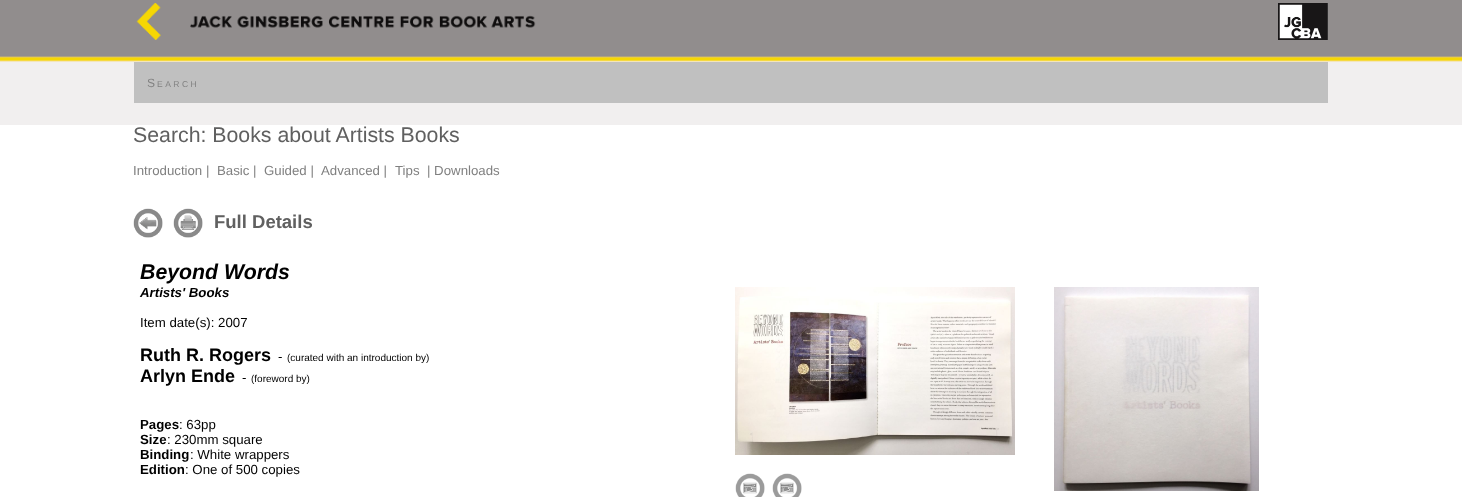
<svg xmlns="http://www.w3.org/2000/svg" width="1462" height="497">
	<rect width="100%" height="100%" fill="#FFFFFF" />
	<image x="0" y="0" width="1462" height="125" href="assets/img1.png" />
	<image x="136" y="3" width="25" height="37" href="assets/img2.png" />
	<image x="190" y="15" width="346" height="13" href="assets/img3.png" />
	<image x="1278" y="3" width="50" height="37" href="assets/img4.png" />
	<rect x="134" y="62" width="1194" height="41" fill="#C0C0C0" />
	<text x="147" y="87" font-family="Liberation Sans" font-size="12" letter-spacing="2.5" fill="#808080">S</text>
	<text x="157" y="87" font-family="Liberation Sans" font-size="8.5" letter-spacing="2.5" fill="#808080">EARCH</text>
	<text x="133" y="142" font-family="Liberation Sans" font-size="21.3" fill="#606060">Search: Books about Artists Books</text>
	<g font-family="Liberation Sans" font-size="13.25" fill="#808080">
		<text x="133" y="175">Introduction |</text>
		<text x="217" y="175">Basic |</text>
		<text x="264" y="175">Guided |</text>
		<text x="321" y="175">Advanced |</text>
		<text x="395" y="175">Tips</text>
		<text x="427" y="175">| Downloads</text>
	</g>
	<image x="133" y="208" width="30" height="30" href="assets/img5.png" />
	<image x="173" y="208" width="30" height="30" href="assets/img6.png" />
	<text x="214" y="228" font-family="Liberation Sans" font-size="18.5" font-weight="700" fill="#606060">Full Details</text>
	<text x="140" y="279" font-family="Liberation Sans" font-size="21.3" font-weight="700" font-style="italic" fill="#000000">Beyond Words</text>
	<text x="140" y="297" font-family="Liberation Sans" font-size="13.25" font-weight="700" font-style="italic" fill="#000000">Artists' Books</text>
	<text x="140" y="327" font-family="Liberation Sans" font-size="13.25" fill="#000000">Item date(s): 2007</text>
	<text x="140" y="361" font-family="Liberation Sans" font-size="18" font-weight="700" fill="#000000">Ruth R. Rogers</text>
	<text x="278" y="361" font-family="Liberation Sans" font-size="13.25" fill="#000000">-</text>
	<text x="287" y="361" font-family="Liberation Sans" font-size="10" fill="#000000">(curated with an introduction by)</text>
	<text x="140" y="382" font-family="Liberation Sans" font-size="18" font-weight="700" fill="#000000">Arlyn Ende</text>
	<text x="242" y="382" font-family="Liberation Sans" font-size="13.25" fill="#000000">-</text>
	<text x="251" y="382" font-family="Liberation Sans" font-size="10" fill="#000000">(foreword by)</text>
	<text x="140" y="429" font-family="Liberation Sans" font-size="13.25" font-weight="700" fill="#000000">Pages</text>
	<text x="179" y="429" font-family="Liberation Sans" font-size="13.25" fill="#000000">: 63pp</text>
	<text x="140" y="444" font-family="Liberation Sans" font-size="13.25" font-weight="700" fill="#000000">Size</text>
	<text x="167" y="444" font-family="Liberation Sans" font-size="13.25" fill="#000000">: 230mm square</text>
	<text x="140" y="459" font-family="Liberation Sans" font-size="13.25" font-weight="700" fill="#000000">Binding</text>
	<text x="190" y="459" font-family="Liberation Sans" font-size="13.25" fill="#000000">: White wrappers</text>
	<text x="140" y="474" font-family="Liberation Sans" font-size="13.25" font-weight="700" fill="#000000">Edition</text>
	<text x="185" y="474" font-family="Liberation Sans" font-size="13.25" fill="#000000">: One of 500 copies</text>
	<image x="735" y="287" width="280" height="168" href="assets/img7.png" />
	<image x="735" y="473" width="30" height="24" href="assets/img8.png" />
	<image x="772" y="473" width="30" height="24" href="assets/img9.png" />
	<image x="1054" y="287" width="205" height="204" href="assets/img10.png" />
</svg>
